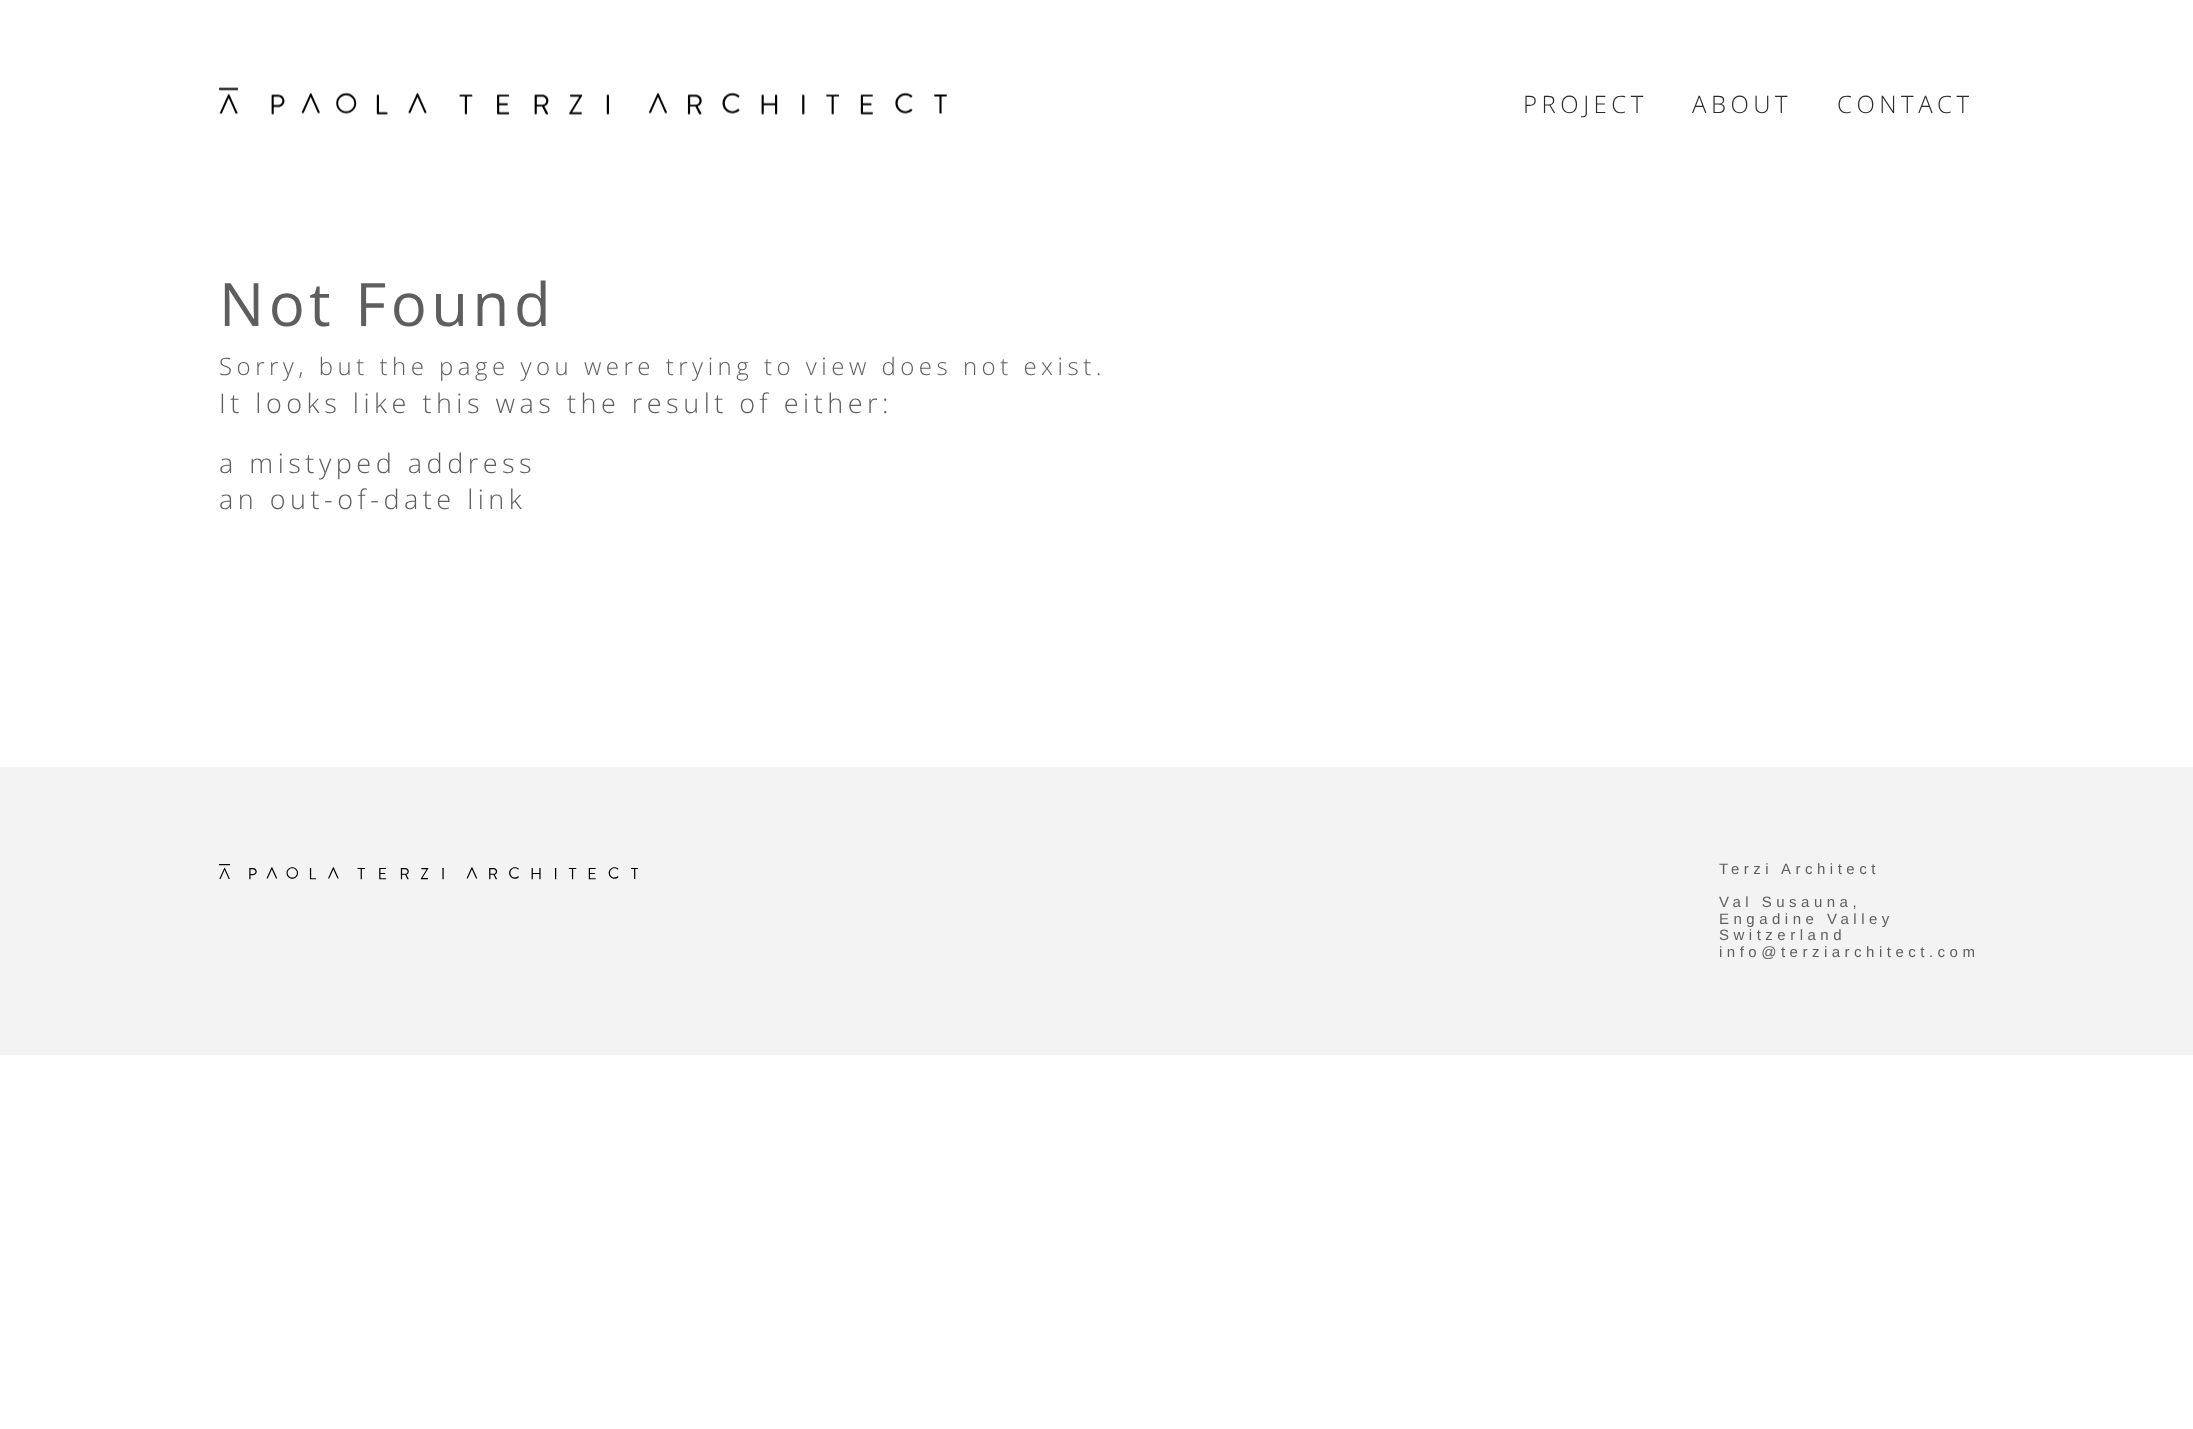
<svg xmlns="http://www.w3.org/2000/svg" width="2193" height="1429">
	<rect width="100%" height="100%" fill="#FFFFFF" />
	<image x="219" y="87" width="728" height="28" href="assets/img1.png" />
	<g font-family="Open Sans" font-size="24" font-weight="300" letter-spacing="4.5" fill="#2A2A2A">
		<text x="1523" y="113">PROJECT</text>
		<text x="1692" y="113">ABOUT</text>
		<text x="1837" y="113">CONTACT</text>
	</g>
	<text x="219" y="326" font-family="Open Sans" font-size="60" letter-spacing="4.5" fill="#5E5E5E">Not Found</text>
	<text x="219" y="375" font-family="Open Sans" font-size="24" font-weight="300" letter-spacing="4.5" fill="#5E5E5E">Sorry, but the page you were trying to view does not exist.</text>
	<g font-family="Open Sans" font-size="27" font-weight="300" letter-spacing="4.5" fill="#5E5E5E">
		<text x="219" y="413">It looks like this was the result of either:</text>
		<text x="219" y="473">a mistyped address</text>
		<text x="219" y="509">an out-of-date link</text>
	</g>
	<rect x="0" y="767" width="2193" height="288" fill="#F3F3F3" />
	<image x="219" y="864" width="419" height="16" href="assets/img2.png" />
	<g font-family="Liberation Sans" font-size="15" letter-spacing="4.5" fill="#5E5E5E">
		<text x="1719" y="874">Terzi Architect</text>
		<text x="1719" y="907">Val Susauna,</text>
		<text x="1719" y="924">Engadine Valley</text>
		<text x="1719" y="940">Switzerland</text>
		<text x="1719" y="957">info@terziarchitect.com</text>
	</g>
</svg>
